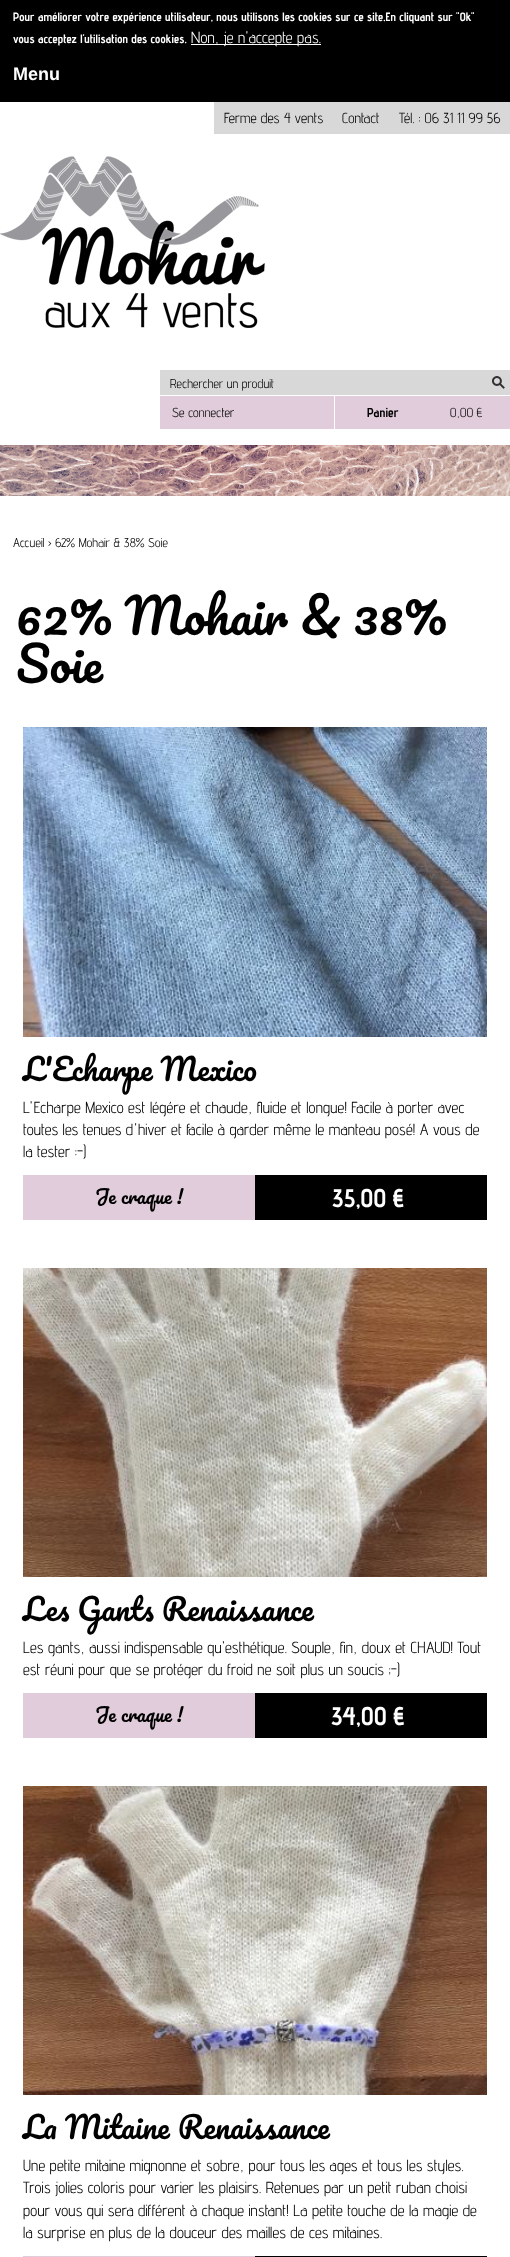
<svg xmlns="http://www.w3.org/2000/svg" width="510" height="2257">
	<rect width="100%" height="100%" fill="#FFFFFF" />
	<rect x="0" y="0" width="510" height="102" fill="#000000" />
	<g font-family="Advent Pro" font-size="12" font-weight="700" fill="#FFFFFF">
		<text x="13" y="21">Pour améliorer votre expérience utilisateur, nous utilisons les cookies sur ce site.En cliquant sur "Ok"</text>
		<text x="13" y="43">vous acceptez l'utilisation des cookies.</text>
	</g>
	<rect x="191" y="44" width="130" height="1" fill="#FFFFFF" />
	<text x="191" y="43" font-family="Advent Pro" font-size="16" fill="#FFFFFF">Non, je n'accepte pas.</text>
	<text x="13" y="80" font-family="Liberation Sans" font-size="18" font-weight="700" fill="#FFFFFF">Menu</text>
	<rect x="214" y="102" width="296" height="32" fill="#D8D8D8" />
	<g font-family="Advent Pro" font-size="14.5" fill="#000000">
		<text x="224" y="123">Ferme des 4 vents</text>
		<text x="342" y="123">Contact</text>
		<text x="399" y="123">Tél. : 06 31 11 99 56</text>
	</g>
	<image x="0" y="156" width="265" height="172" href="assets/img1.png" />
	<rect x="160" y="370" width="350" height="25" fill="#D8D8D8" />
	<text x="170" y="388" font-family="Advent Pro" font-size="12.75" fill="#000000">Rechercher un produit</text>
	<image x="492" y="376" width="13" height="13" href="assets/img2.png" />
	<rect x="160" y="396" width="174" height="33" fill="#E0CCDA" />
	<text x="172" y="417" font-family="Advent Pro" font-size="13" fill="#000000">Se connecter</text>
	<rect x="335" y="396" width="175" height="33" fill="#E0CCDA" />
	<text x="367" y="417" font-family="Advent Pro" font-size="13" font-weight="700" fill="#000000">Panier</text>
	<text x="450" y="417" font-family="Advent Pro" font-size="13" fill="#000000">0,00 €</text>
	<image x="0" y="445" width="510" height="51" href="assets/img3.png" />
	<text x="13" y="547" font-family="Advent Pro" font-size="12.75" fill="#000000">Accueil › 62% Mohair &amp; 38% Soie</text>
	<g font-family="Pacifico" font-size="48" fill="#000000">
		<text x="16" y="635">62% Mohair &amp; 38%</text>
		<text x="16" y="683">Soie</text>
	</g>
	<image x="23" y="727" width="464" height="310" href="assets/img4.png" />
	<text x="23" y="1081" font-family="Pacifico" font-size="30" fill="#000000">L'Echarpe Mexico</text>
	<g font-family="Advent Pro" font-size="16" fill="#000000">
		<text x="23" y="1113">L'Echarpe Mexico est légére et chaude, fluide et longue! Facile à porter avec</text>
		<text x="23" y="1135">toutes les tenues d'hiver et facile à garder même le manteau posé! A vous de</text>
		<text x="23" y="1157">la tester :-)</text>
	</g>
	<rect x="23" y="1175" width="232" height="45" fill="#E0CCDA" />
	<text x="95" y="1204" font-family="Pacifico" font-size="19" fill="#000000">Je craque !</text>
	<rect x="255" y="1175" width="232" height="45" fill="#000000" />
	<text x="332" y="1207" font-family="Advent Pro" font-size="25.5" font-weight="700" fill="#FFFFFF">35,00 €</text>
	<image x="23" y="1268" width="464" height="309" href="assets/img5.png" />
	<text x="23" y="1621" font-family="Pacifico" font-size="30" fill="#000000">Les Gants Renaissance</text>
	<g font-family="Advent Pro" font-size="16" fill="#000000">
		<text x="23" y="1653">Les gants, aussi indispensable qu'esthétique. Souple, fin, doux et CHAUD! Tout</text>
		<text x="23" y="1675">est réuni pour que se protéger du froid ne soit plus un soucis ;-)</text>
	</g>
	<rect x="23" y="1693" width="232" height="45" fill="#E0CCDA" />
	<text x="95" y="1722" font-family="Pacifico" font-size="19" fill="#000000">Je craque !</text>
	<rect x="255" y="1693" width="232" height="45" fill="#000000" />
	<text x="331" y="1725" font-family="Advent Pro" font-size="25.5" font-weight="700" fill="#FFFFFF">34,00 €</text>
	<image x="23" y="1786" width="464" height="309" href="assets/img6.png" />
	<text x="23" y="2139" font-family="Pacifico" font-size="30" fill="#000000">La Mitaine Renaissance</text>
	<g font-family="Advent Pro" font-size="16" fill="#000000">
		<text x="23" y="2171">Une petite mitaine mignonne et sobre, pour tous les ages et tous les styles.</text>
		<text x="23" y="2193">Trois jolies coloris pour varier les plaisirs. Retenues par un petit ruban choisi</text>
		<text x="23" y="2216">pour vous qui sera différent à chaque instant! La petite touche de la magie de</text>
		<text x="23" y="2238">la surprise en plus de la douceur des mailles de ces mitaines.</text>
	</g>
	<rect x="23" y="2256" width="232" height="1" fill="#E0CCDA" />
	<rect x="255" y="2256" width="232" height="1" fill="#000000" />
</svg>
